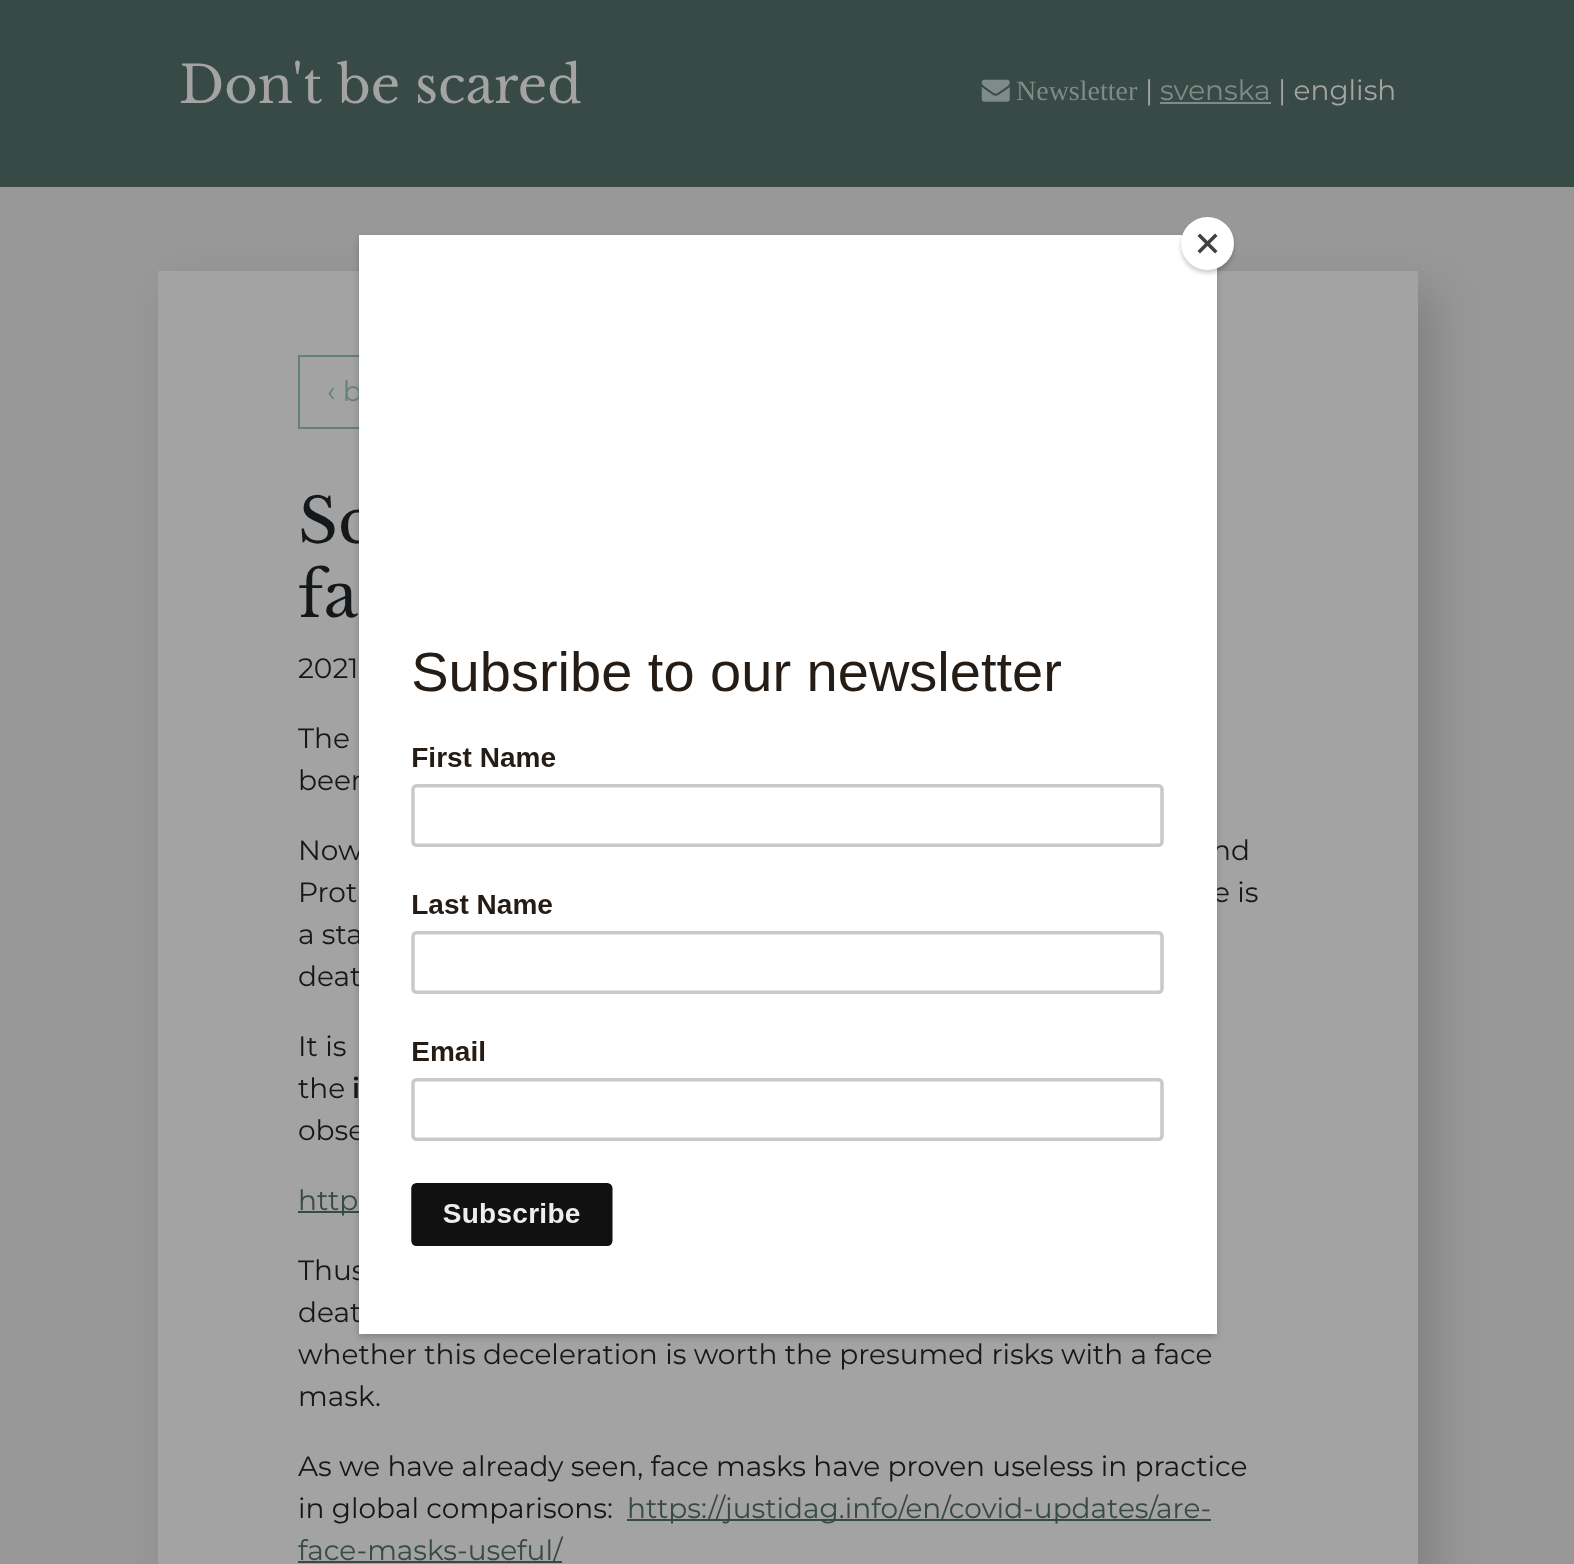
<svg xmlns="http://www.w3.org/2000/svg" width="1574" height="1564">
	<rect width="100%" height="100%" fill="#989898" />
	<rect x="0" y="0" width="1574" height="187" fill="#374A46" />
	<text x="179" y="103" font-family="Libre Baskerville" font-size="51.25" fill="#A3A3A3">Don't be scared</text>
	<image x="981" y="79" width="29" height="23" href="assets/img1.png" />
	<text x="1016" y="100" font-family="Liberation Serif" font-size="28" fill="#7E8C88">Newsletter</text>
	<text x="1145" y="100" font-family="Montserrat" font-size="28" fill="#A3A3A3">|</text>
	<text x="1160" y="100" font-family="Montserrat" font-size="28" fill="#7E8C88">svenska</text>
	<rect x="1160" y="102" width="111" height="2" fill="#7E8C88" />
	<text x="1278" y="100" font-family="Montserrat" font-size="28" fill="#A3A3A3">| english</text>
	<rect x="175" y="289" width="1260" height="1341" fill="#000000" fill-opacity="0.15" filter="blur(22px)" />
	<rect x="158" y="271" width="1260" height="1293" fill="#A3A3A3" />
	<rect x="299" y="356" width="141" height="72" fill="none" stroke="#638079" stroke-width="2" />
	<rect x="298" y="1211" width="61" height="2" fill="#374A46" />
	<rect x="359" y="238" width="857" height="1099" fill="#000000" fill-opacity="0.2" filter="blur(3.5px)" />
	<text x="327" y="401" font-family="Montserrat" font-size="28" fill="#638079">‹ b</text>
	<text x="298" y="543" font-family="Libre Baskerville" font-size="62" fill="#15181A">Sc</text>
	<g font-family="Montserrat" font-size="28" fill="#15181A">
		<text x="298" y="790">been</text>
		<text x="298" y="860">Now</text>
		<text x="1212" y="860">nd</text>
		<text x="1213" y="902">e is</text>
		<text x="298" y="944">a sta</text>
		<text x="298" y="986">deat</text>
		<text x="298" y="1140">obse</text>
		<text x="298" y="1280">Thus</text>
		<text x="298" y="1322">deat</text>
	</g>
	<image x="359" y="235" width="858" height="1099" href="assets/img2.png" />
	<rect x="1181" y="221" width="53" height="52" rx="26" fill="#000000" fill-opacity="0.2" filter="blur(2px)" />
	<circle cx="1207.5" cy="243.5" r="26.5" fill="#FFFFFF" />
	<path d="M1215 233.5L1217.5 236L1200 253.5L1197.5 251Z" fill="#414141" />
	<path d="M1197.5 236L1200 233.5L1217.5 251L1215 253.5Z" fill="#414141" />
	<text x="298" y="617" font-family="Libre Baskerville" font-size="62" fill="#15181A">fa</text>
	<g font-family="Montserrat" font-size="28" fill="#15181A">
		<text x="298" y="678">2021</text>
		<text x="298" y="748">The</text>
		<text x="298" y="902">Prot</text>
		<text x="298" y="1056">It is</text>
		<text x="298" y="1098">the</text>
	</g>
	<text x="352" y="1098" font-family="Montserrat" font-size="28" font-weight="600" fill="#15181A">i</text>
	<text x="298" y="1210" font-family="Montserrat" font-size="28" fill="#374A46">http</text>
	<g font-family="Montserrat" font-size="28" fill="#15181A">
		<text x="298" y="1364">whether this deceleration is worth the presumed risks with a face</text>
		<text x="298" y="1406">mask.</text>
		<text x="298" y="1476">As we have already seen, face masks have proven useless in practice</text>
		<text x="298" y="1518">in global comparisons:</text>
	</g>
	<rect x="627" y="1519" width="584" height="2" fill="#374A46" />
	<text x="627" y="1518" font-family="Montserrat" font-size="28" fill="#374A46">https://justidag.info/en/covid-updates/are-</text>
	<rect x="298" y="1561" width="264" height="2" fill="#374A46" />
	<text x="298" y="1560" font-family="Montserrat" font-size="28" fill="#374A46">face-masks-useful/</text>
</svg>
